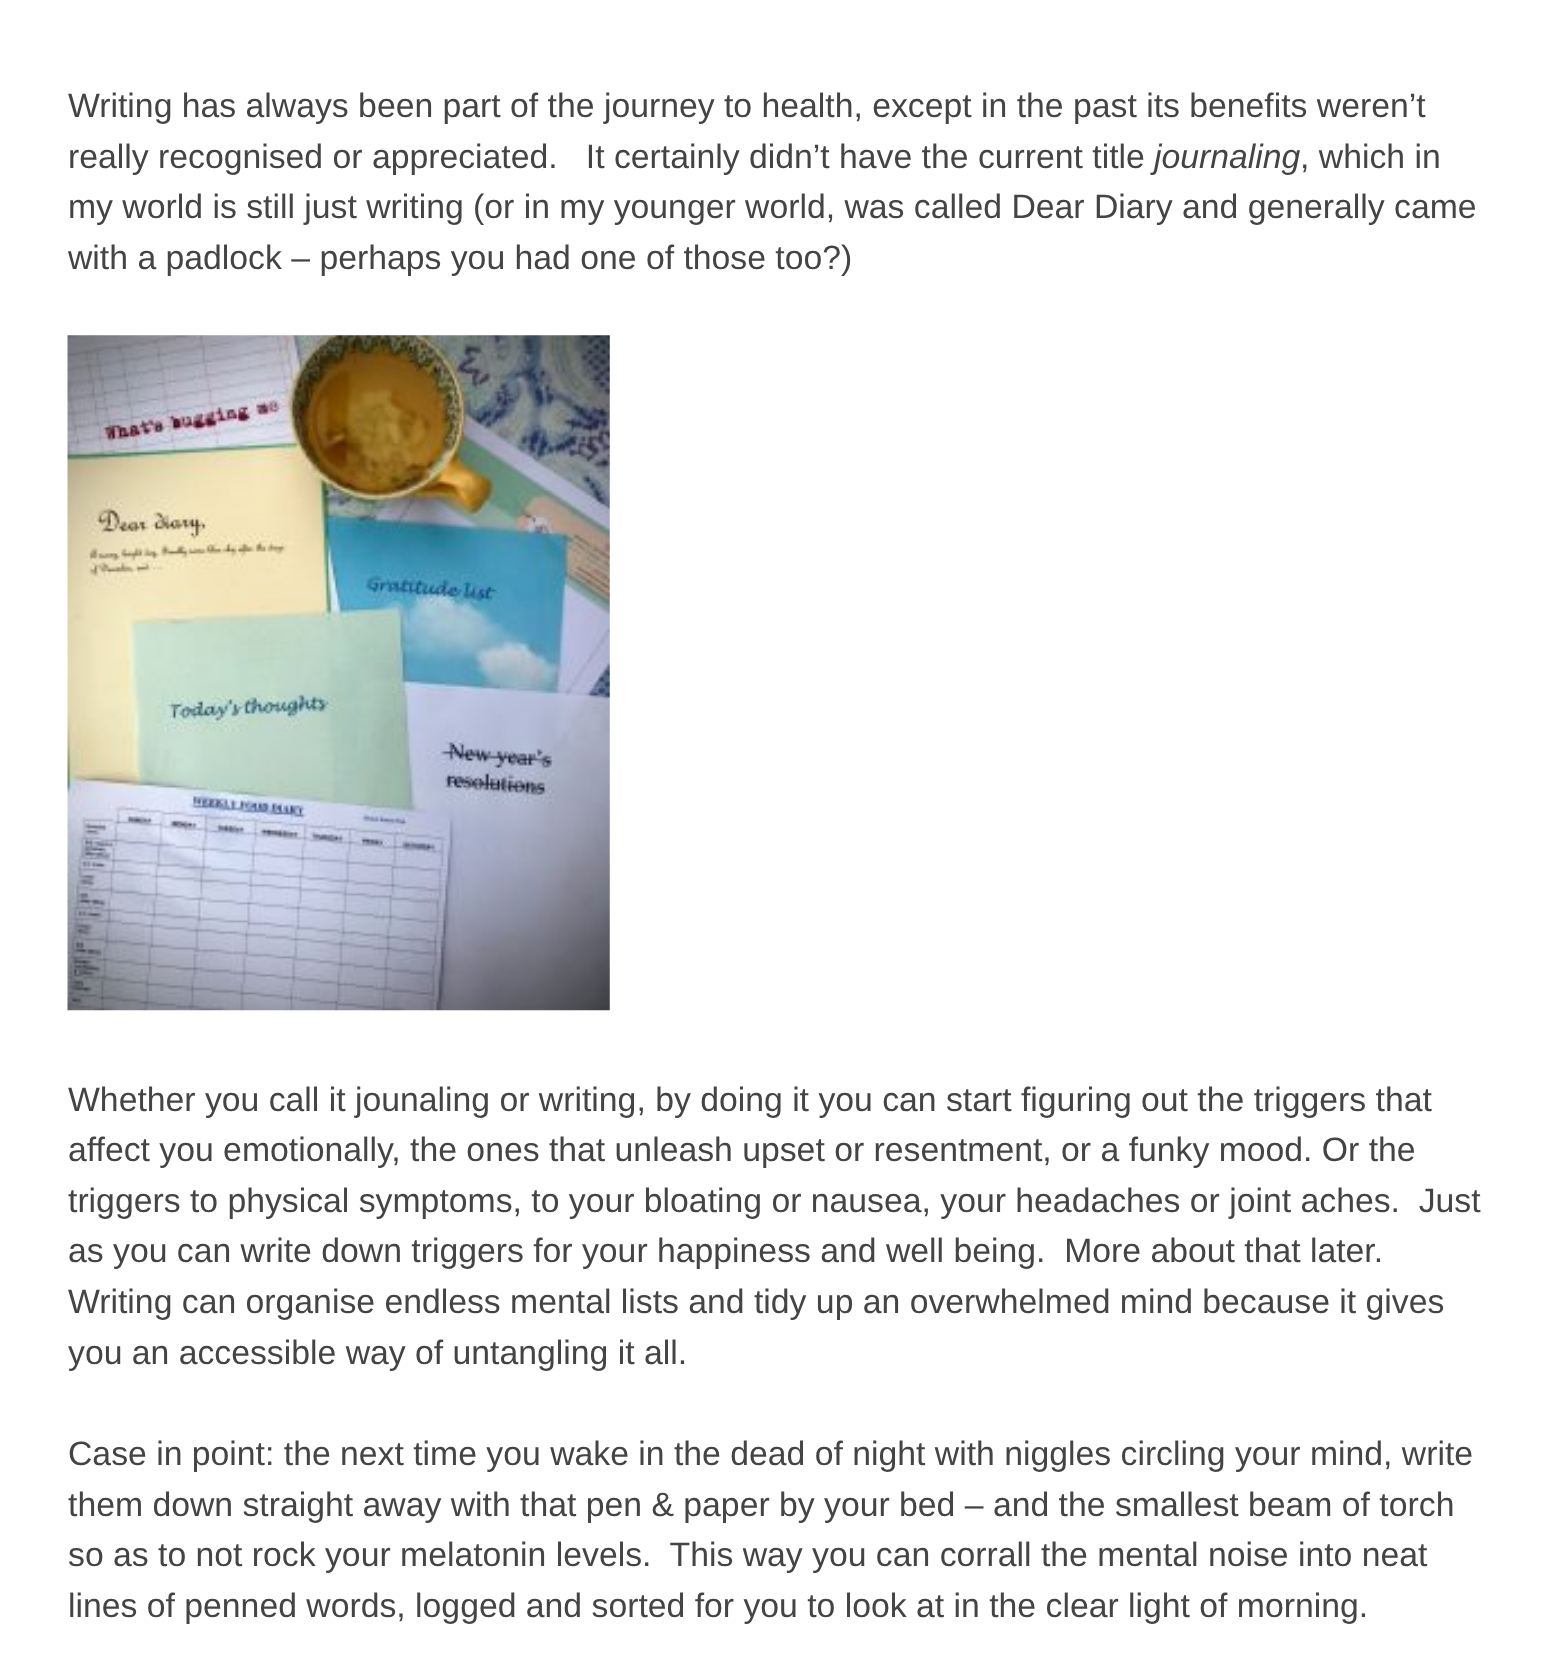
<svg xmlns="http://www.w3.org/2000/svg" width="1552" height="1664">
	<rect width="100%" height="100%" fill="#FFFFFF" />
	<g font-family="Liberation Sans" font-size="33.75" fill="#444444">
		<text x="68" y="117">Writing has always been part of the journey to health, except in the past its benefits weren’t</text>
		<text x="68" y="168" xml:space="preserve">really recognised or appreciated.   It certainly didn’t have the current title</text>
	</g>
	<text x="1154" y="168" font-family="Liberation Sans" font-size="33.75" font-style="italic" fill="#444444">journaling</text>
	<g font-family="Liberation Sans" font-size="33.75" fill="#444444">
		<text x="1300" y="168">, which in</text>
		<text x="68" y="218">my world is still just writing (or in my younger world, was called Dear Diary and generally came</text>
		<text x="68" y="269">with a padlock – perhaps you had one of those too?)</text>
	</g>
	<image x="67" y="335" width="543" height="676" href="assets/img1.png" />
	<g font-family="Liberation Sans" font-size="33.75" fill="#444444">
		<text x="68" y="1111">Whether you call it jounaling or writing, by doing it you can start figuring out the triggers that</text>
		<text x="68" y="1161">affect you emotionally, the ones that unleash upset or resentment, or a funky mood. Or the</text>
		<text x="68" y="1212" xml:space="preserve">triggers to physical symptoms, to your bloating or nausea, your headaches or joint aches.  Just</text>
		<text x="68" y="1262" xml:space="preserve">as you can write down triggers for your happiness and well being.  More about that later.</text>
		<text x="68" y="1313">Writing can organise endless mental lists and tidy up an overwhelmed mind because it gives</text>
		<text x="68" y="1364">you an accessible way of untangling it all.</text>
		<text x="68" y="1465">Case in point: the next time you wake in the dead of night with niggles circling your mind, write</text>
		<text x="68" y="1516">them down straight away with that pen &amp; paper by your bed – and the smallest beam of torch</text>
		<text x="68" y="1566" xml:space="preserve">so as to not rock your melatonin levels.  This way you can corrall the mental noise into neat</text>
		<text x="68" y="1617">lines of penned words, logged and sorted for you to look at in the clear light of morning.</text>
	</g>
</svg>
